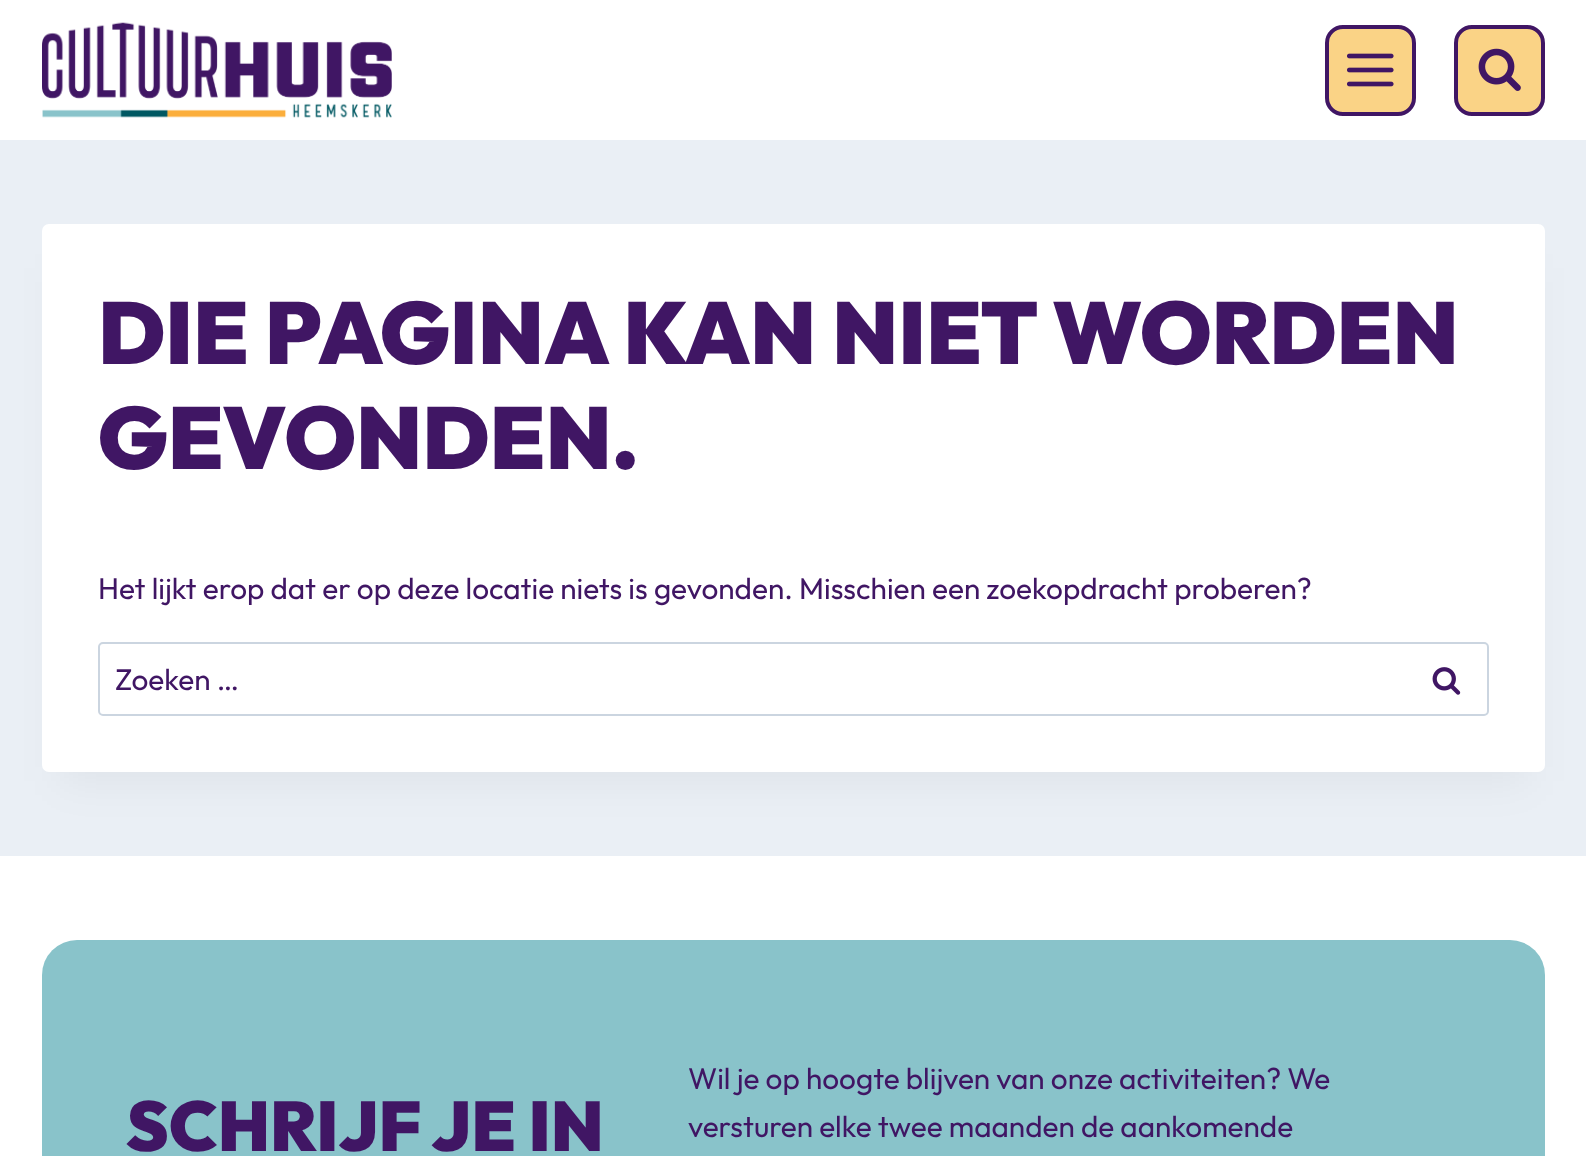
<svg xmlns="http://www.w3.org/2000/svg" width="1586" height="1156">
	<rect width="100%" height="100%" fill="#EAEFF5" />
	<rect x="0" y="0" width="1586" height="140" fill="#FFFFFF" />
	<image x="42" y="22" width="350" height="96" href="assets/img1.png" />
	<rect x="1327" y="27" width="87" height="87" rx="16" fill="#FAD386" stroke="#401664" stroke-width="4" />
	<image x="1347" y="53" width="47" height="34" href="assets/img2.png" />
	<rect x="1456" y="27" width="87" height="87" rx="16" fill="#FAD386" stroke="#401664" stroke-width="4" />
	<image x="1478" y="48" width="43" height="43" href="assets/img3.png" />
	<rect x="60" y="268" width="1468" height="513" fill="#000000" fill-opacity="0.05" filter="blur(22px)" />
	<rect x="42" y="224" width="1503" height="548" rx="7" fill="#FFFFFF" />
	<g font-family="Outfit" font-size="87.5" font-weight="900" fill="#401664">
		<text x="98" y="364">DIE PAGINA KAN NIET WORDEN</text>
		<text x="98" y="469">GEVONDEN.</text>
	</g>
	<text x="98" y="599" font-family="Outfit" font-size="29.75" fill="#401664">Het lijkt erop dat er op deze locatie niets is gevonden. Misschien een zoekopdracht proberen?</text>
	<rect x="99" y="643" width="1389" height="72" rx="4" fill="none" stroke="#CBD5E0" stroke-width="2" />
	<text x="115" y="690" font-family="Outfit" font-size="29.75" fill="#401664">Zoeken …</text>
	<image x="1432" y="667" width="29" height="28" href="assets/img4.png" />
	<rect x="0" y="856" width="1586" height="300" fill="#FFFFFF" />
	<rect x="42" y="940" width="1503" height="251" rx="35" fill="#89C3CA" />
	<text x="126" y="1151" font-family="Outfit" font-size="70" font-weight="900" fill="#401664">SCHRIJF JE IN</text>
	<g font-family="Outfit" font-size="29.75" fill="#401664">
		<text x="688" y="1089">Wil je op hoogte blijven van onze activiteiten? We</text>
		<text x="688" y="1137">versturen elke twee maanden de aankomende</text>
	</g>
</svg>
